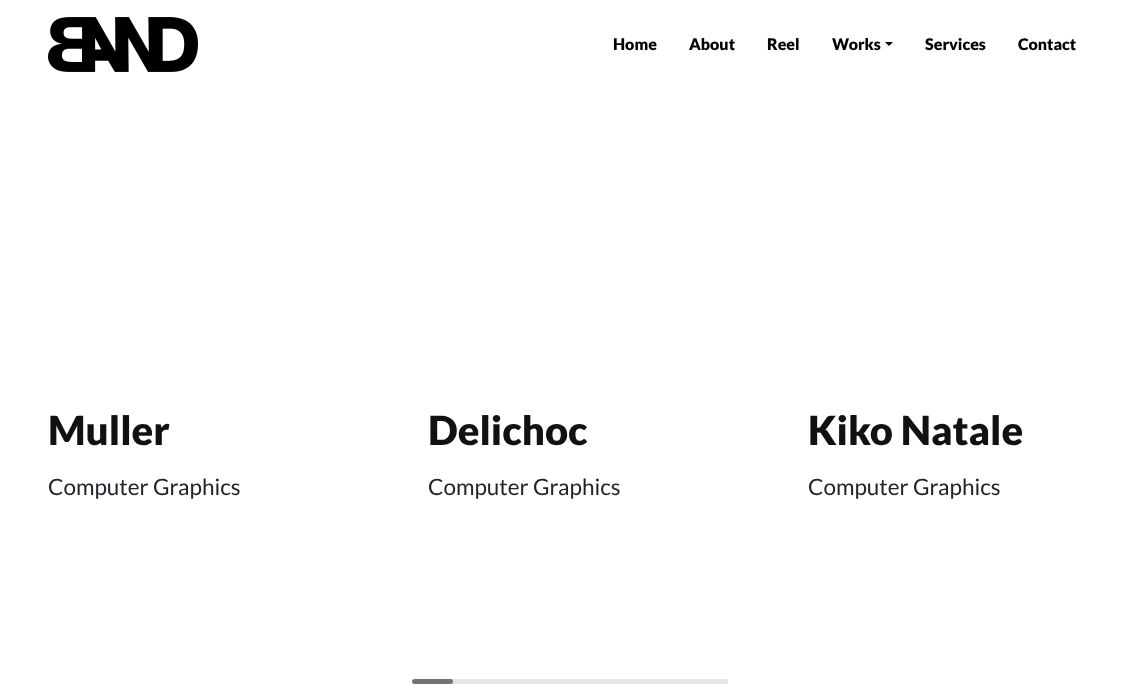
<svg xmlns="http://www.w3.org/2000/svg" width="1140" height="695">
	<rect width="100%" height="100%" fill="#FFFFFF" />
	<image x="48" y="17" width="150" height="55" href="assets/img1.png" />
	<g font-family="Lato" font-size="16" font-weight="900" fill="#000000">
		<text x="613" y="50">Home</text>
		<text x="689" y="50">About</text>
		<text x="767" y="50">Reel</text>
		<text x="832" y="50">Works</text>
	</g>
	<path d="M885 42H893L889 46Z" fill="#000000" />
	<g font-family="Lato" font-size="16" font-weight="900" fill="#000000">
		<text x="925" y="50">Services</text>
		<text x="1018" y="50">Contact</text>
	</g>
	<text x="48" y="445" font-family="Lato" font-size="40" font-weight="900" fill="#111111">Muller</text>
	<text x="48" y="495" font-family="Lato" font-size="22.5" fill="#212529">Computer Graphics</text>
	<text x="428" y="445" font-family="Lato" font-size="40" font-weight="900" fill="#111111">Delichoc</text>
	<text x="428" y="495" font-family="Lato" font-size="22.5" fill="#212529">Computer Graphics</text>
	<text x="808" y="445" font-family="Lato" font-size="40" font-weight="900" fill="#111111">Kiko Natale</text>
	<text x="808" y="495" font-family="Lato" font-size="22.5" fill="#212529">Computer Graphics</text>
	<rect x="412" y="679" width="316" height="5" rx="2.5" fill="#E6E6E6" />
	<rect x="412" y="679" width="41" height="5" rx="2.5" fill="#000000" fill-opacity="0.5" />
</svg>
